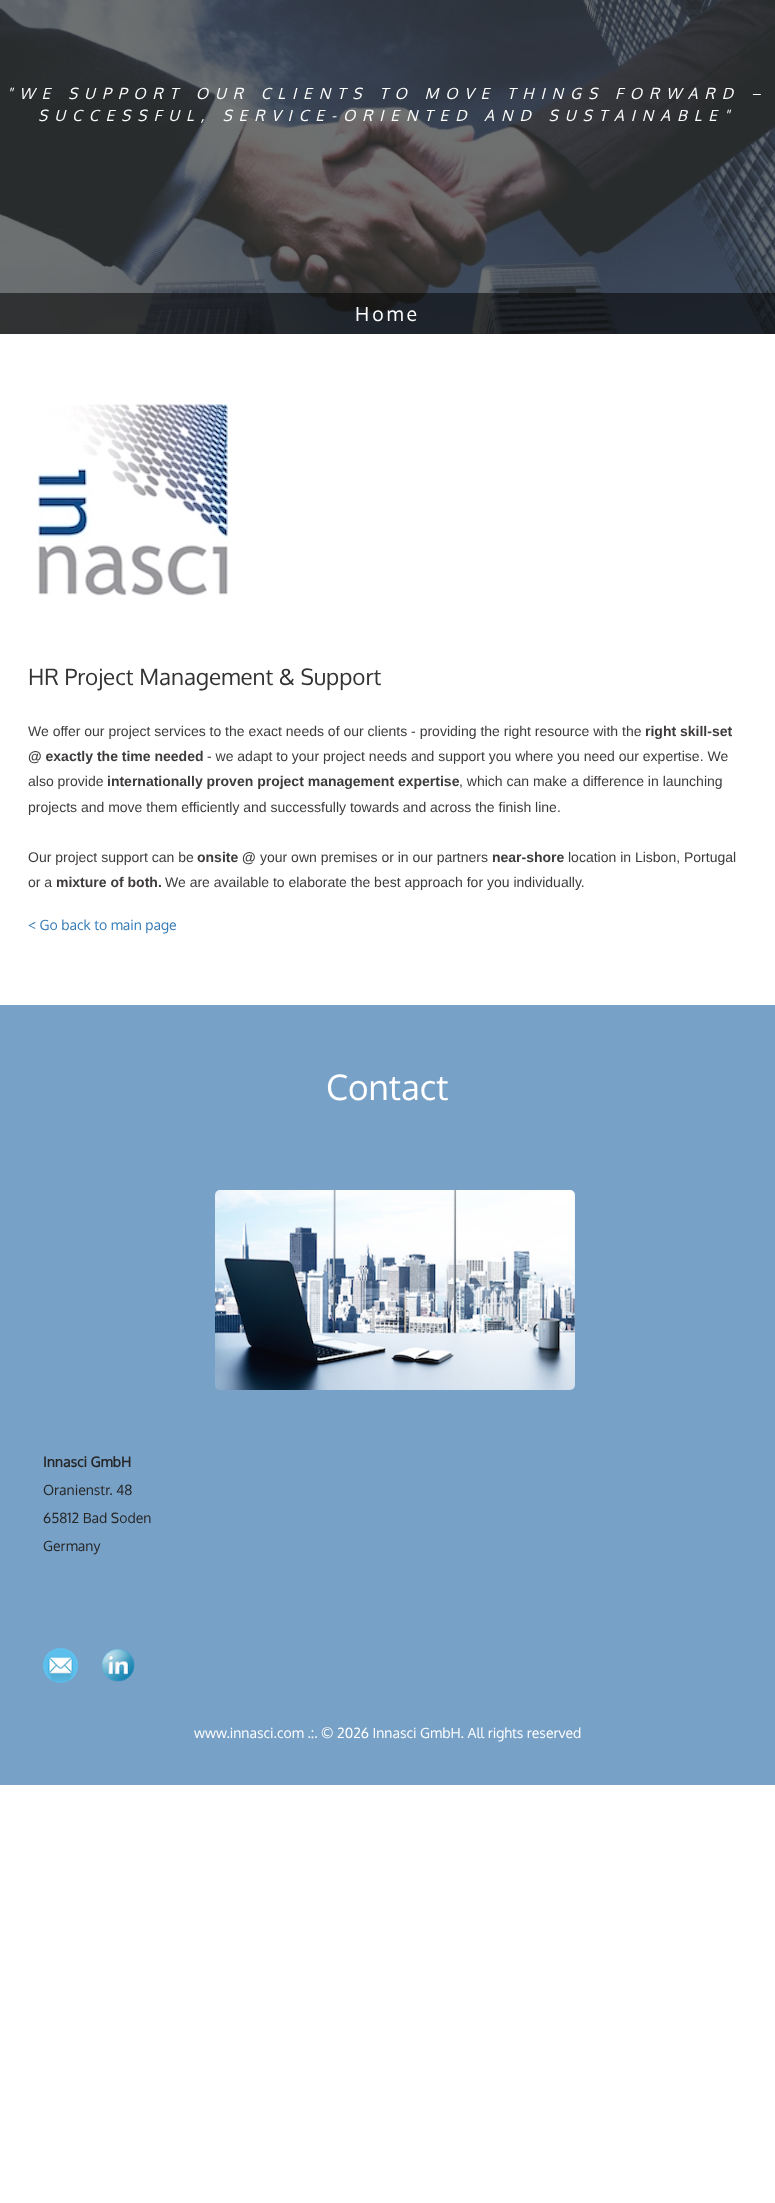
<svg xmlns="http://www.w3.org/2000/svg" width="775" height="2203">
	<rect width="100%" height="100%" fill="#FFFFFF" />
	<image x="0" y="0" width="775" height="334" href="assets/img1.png" />
	<g font-family="Oxygen" font-size="15.4" font-style="italic" letter-spacing="7" fill="#FFFFFF">
		<text x="7" y="99">"WE SUPPORT OUR CLIENTS TO MOVE THINGS FORWARD –</text>
		<text x="38" y="121">SUCCESSFUL, SERVICE-ORIENTED AND SUSTAINABLE"</text>
	</g>
	<rect x="0" y="293" width="775" height="41" fill="#060606" fill-opacity="0.57" />
	<text x="355" y="321" font-family="Oxygen" font-size="19.5" letter-spacing="3" fill="#FFFFFF">Home</text>
	<image x="36" y="404" width="192" height="192" href="assets/img2.png" />
	<text x="28" y="685" font-family="Oxygen" font-size="22.4" fill="#333333">HR Project Management &amp; Support</text>
	<text x="28" y="736" font-family="Liberation Sans" font-size="14" fill="#3E3B3B">We offer our project services to the exact needs of our clients - providing the right resource with the</text>
	<g font-family="Liberation Sans" font-size="14" font-weight="700" fill="#3E3B3B">
		<text x="645" y="736">right skill-set</text>
		<text x="28" y="761">@ exactly the time needed</text>
	</g>
	<g font-family="Liberation Sans" font-size="14" fill="#3E3B3B">
		<text x="207" y="761">- we adapt to your project needs and support you where you need our expertise. We</text>
		<text x="28" y="786">also provide</text>
	</g>
	<text x="107" y="786" font-family="Liberation Sans" font-size="14" font-weight="700" fill="#3E3B3B">internationally proven project management expertise</text>
	<g font-family="Liberation Sans" font-size="14" fill="#3E3B3B">
		<text x="459" y="786">, which can make a difference in launching</text>
		<text x="28" y="812">projects and move them efficiently and successfully towards and across the finish line.</text>
		<text x="28" y="862">Our project support can be</text>
	</g>
	<text x="197" y="862" font-family="Liberation Sans" font-size="14" font-weight="700" fill="#3E3B3B">onsite @</text>
	<text x="260" y="862" font-family="Liberation Sans" font-size="14" fill="#3E3B3B">your own premises or in our partners</text>
	<text x="492" y="862" font-family="Liberation Sans" font-size="14" font-weight="700" fill="#3E3B3B">near-shore</text>
	<g font-family="Liberation Sans" font-size="14" fill="#3E3B3B">
		<text x="568" y="862">location in Lisbon, Portugal</text>
		<text x="28" y="887">or a</text>
	</g>
	<text x="56" y="887" font-family="Liberation Sans" font-size="14" font-weight="700" fill="#3E3B3B">mixture of both.</text>
	<text x="165" y="887" font-family="Liberation Sans" font-size="14" fill="#3E3B3B">We are available to elaborate the best approach for you individually.</text>
	<text x="28" y="930" font-family="Oxygen" font-size="14" fill="#337AB7">&lt; Go back to main page</text>
	<rect x="0" y="1005" width="775" height="780" fill="#78A1C7" />
	<text x="326" y="1100" font-family="Oxygen" font-size="35" fill="#FFFFFF">Contact</text>
	<image x="215" y="1190" width="360" height="200" href="assets/img3.png" />
	<text x="43" y="1467" font-family="Oxygen" font-size="14" font-weight="700" fill="#252525">Innasci GmbH</text>
	<g font-family="Oxygen" font-size="14" fill="#252525">
		<text x="43" y="1495">Oranienstr. 48</text>
		<text x="43" y="1523">65812 Bad Soden</text>
		<text x="43" y="1551">Germany</text>
	</g>
	<image x="43" y="1648" width="35" height="35" href="assets/img4.png" />
	<image x="102" y="1649" width="33" height="33" href="assets/img5.png" />
	<text x="194" y="1738" font-family="Oxygen" font-size="14" fill="#FFFFFF">www.innasci.com .:. © 2026 Innasci GmbH. All rights reserved</text>
</svg>
